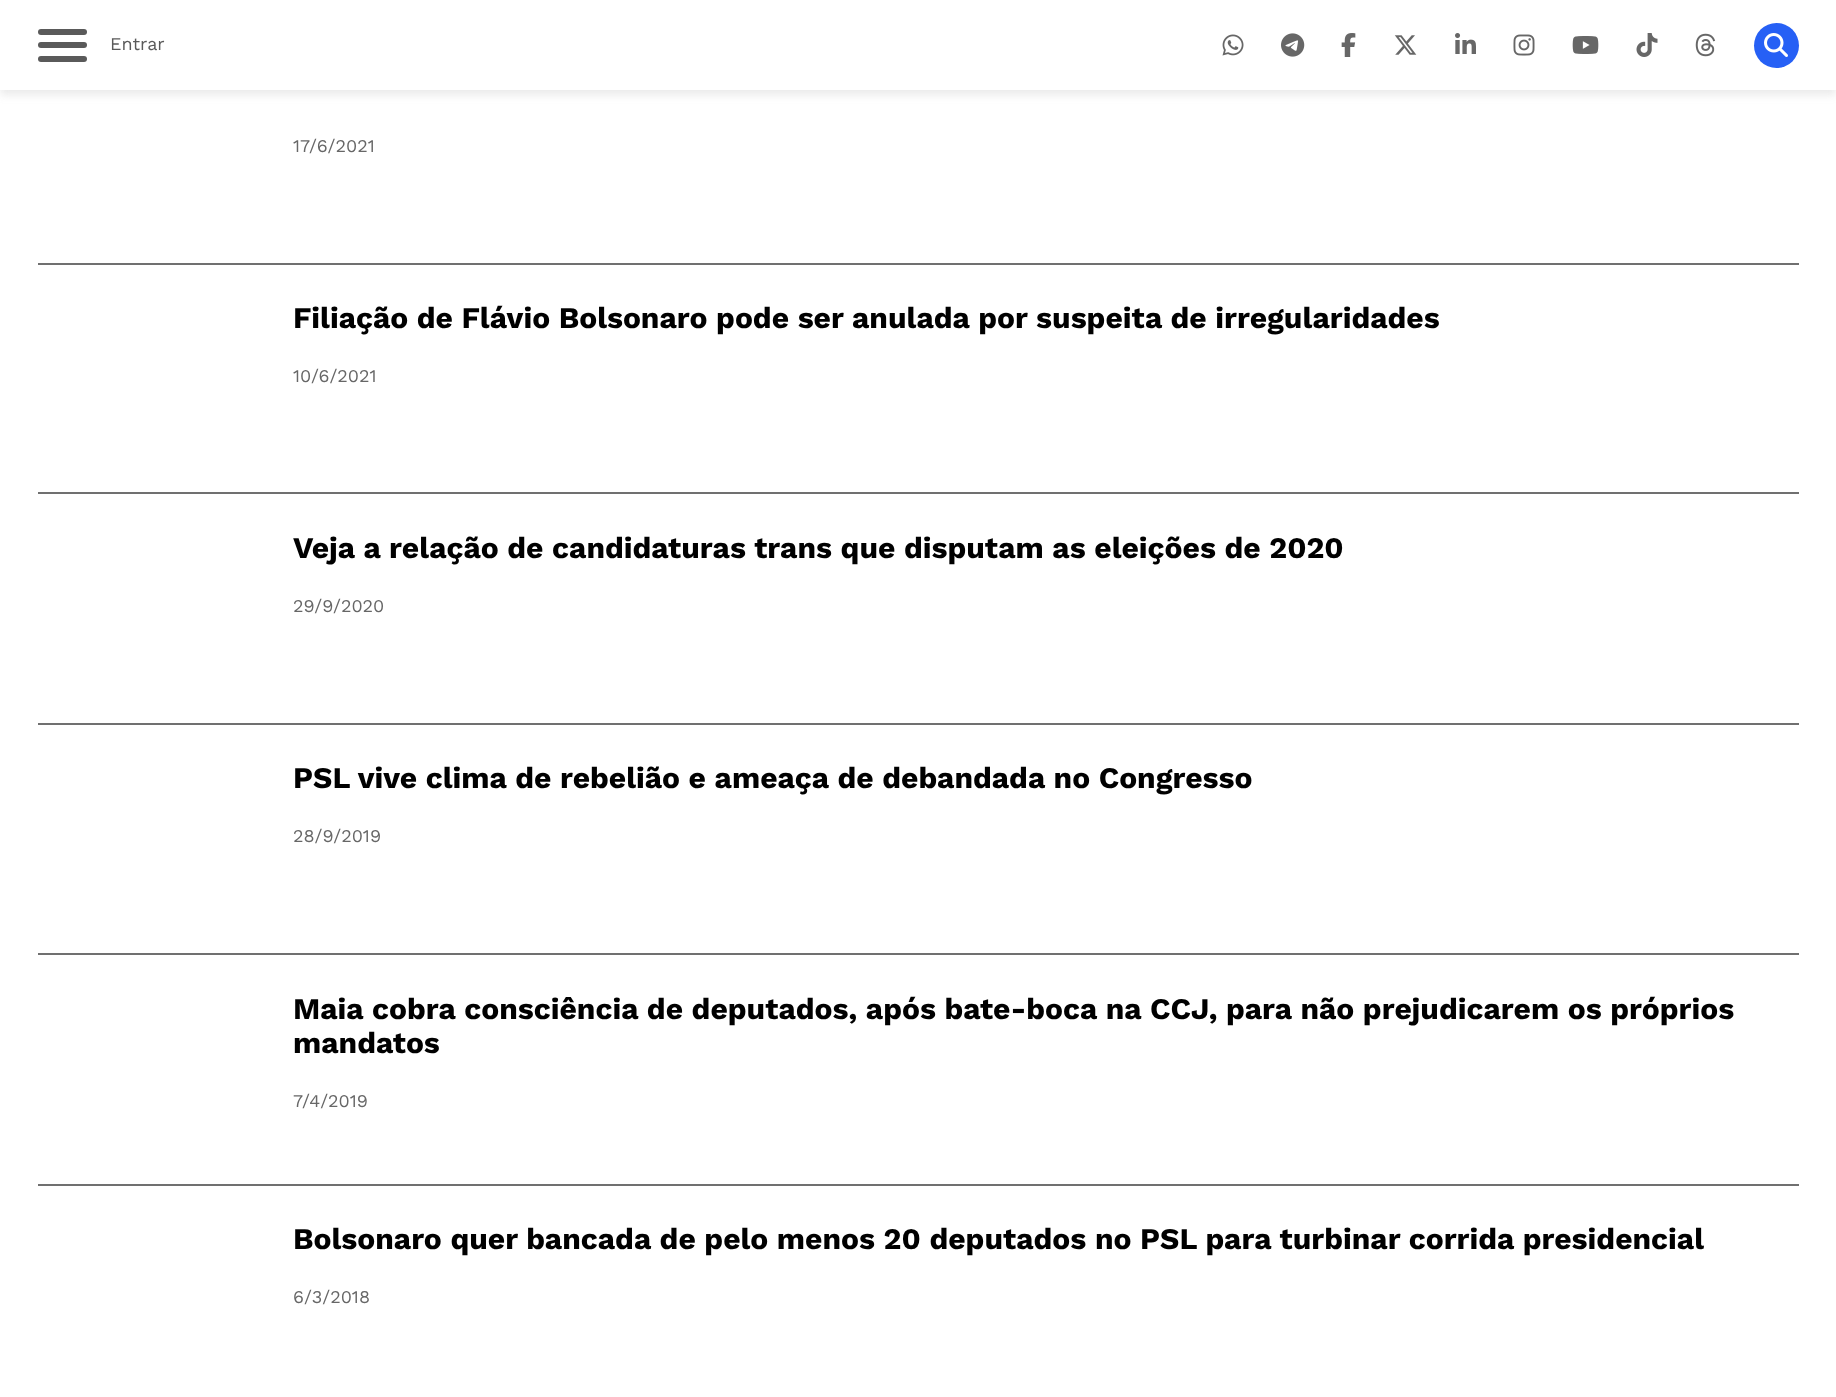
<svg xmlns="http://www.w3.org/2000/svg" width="1836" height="1397">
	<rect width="100%" height="100%" fill="#FFFFFF" />
	<rect x="0" y="5" width="1836" height="90" fill="#7A7A7A" fill-opacity="0.16" filter="blur(4.5px)" />
	<rect x="0" y="0" width="1836" height="90" fill="#FFFFFF" />
	<rect x="38" y="29" width="49" height="6" rx="3" fill="#5A5A5A" />
	<rect x="38" y="42" width="49" height="6" rx="3" fill="#5A5A5A" />
	<rect x="38" y="56" width="49" height="6" rx="3" fill="#5A5A5A" />
	<text x="110" y="50" font-family="Work Sans" font-size="18" fill="#5A5A5A">Entrar</text>
	<image x="1222" y="34" width="22" height="22" href="assets/img1.png" />
	<image x="1281" y="33" width="24" height="24" href="assets/img2.png" />
	<image x="1341" y="33" width="15" height="24" href="assets/img3.png" />
	<image x="1394" y="35" width="23" height="20" href="assets/img4.png" />
	<image x="1455" y="33" width="21" height="21" href="assets/img5.png" />
	<image x="1513" y="34" width="22" height="22" href="assets/img6.png" />
	<image x="1572" y="36" width="27" height="18" href="assets/img7.png" />
	<image x="1636" y="33" width="22" height="24" href="assets/img8.png" />
	<image x="1695" y="33" width="21" height="24" href="assets/img9.png" />
	<circle cx="1776.5" cy="45.5" r="22.5" fill="#2660F5" />
	<image x="1764" y="33" width="24" height="24" href="assets/img10.png" />
	<rect x="38" y="263" width="1761" height="2" fill="#707070" />
	<text x="293" y="152" font-family="Work Sans" font-size="18" fill="#676767">17/6/2021</text>
	<rect x="38" y="492" width="1761" height="2" fill="#707070" />
	<text x="293" y="328" font-family="Work Sans" font-size="30" font-weight="700" fill="#000000">Filiação de Flávio Bolsonaro pode ser anulada por suspeita de irregularidades</text>
	<text x="293" y="382" font-family="Work Sans" font-size="18" fill="#676767">10/6/2021</text>
	<rect x="38" y="723" width="1761" height="2" fill="#707070" />
	<text x="293" y="558" font-family="Work Sans" font-size="30" font-weight="700" fill="#000000">Veja a relação de candidaturas trans que disputam as eleições de 2020</text>
	<text x="293" y="612" font-family="Work Sans" font-size="18" fill="#676767">29/9/2020</text>
	<rect x="38" y="953" width="1761" height="2" fill="#707070" />
	<text x="293" y="788" font-family="Work Sans" font-size="30" font-weight="700" fill="#000000">PSL vive clima de rebelião e ameaça de debandada no Congresso</text>
	<text x="293" y="842" font-family="Work Sans" font-size="18" fill="#676767">28/9/2019</text>
	<rect x="38" y="1184" width="1761" height="2" fill="#707070" />
	<g font-family="Work Sans" font-size="30" font-weight="700" fill="#000000">
		<text x="293" y="1019">Maia cobra consciência de deputados, após bate-boca na CCJ, para não prejudicarem os próprios</text>
		<text x="293" y="1053">mandatos</text>
	</g>
	<text x="293" y="1107" font-family="Work Sans" font-size="18" fill="#676767">7/4/2019</text>
	<text x="293" y="1249" font-family="Work Sans" font-size="30" font-weight="700" fill="#000000">Bolsonaro quer bancada de pelo menos 20 deputados no PSL para turbinar corrida presidencial</text>
	<text x="293" y="1303" font-family="Work Sans" font-size="18" fill="#676767">6/3/2018</text>
</svg>
